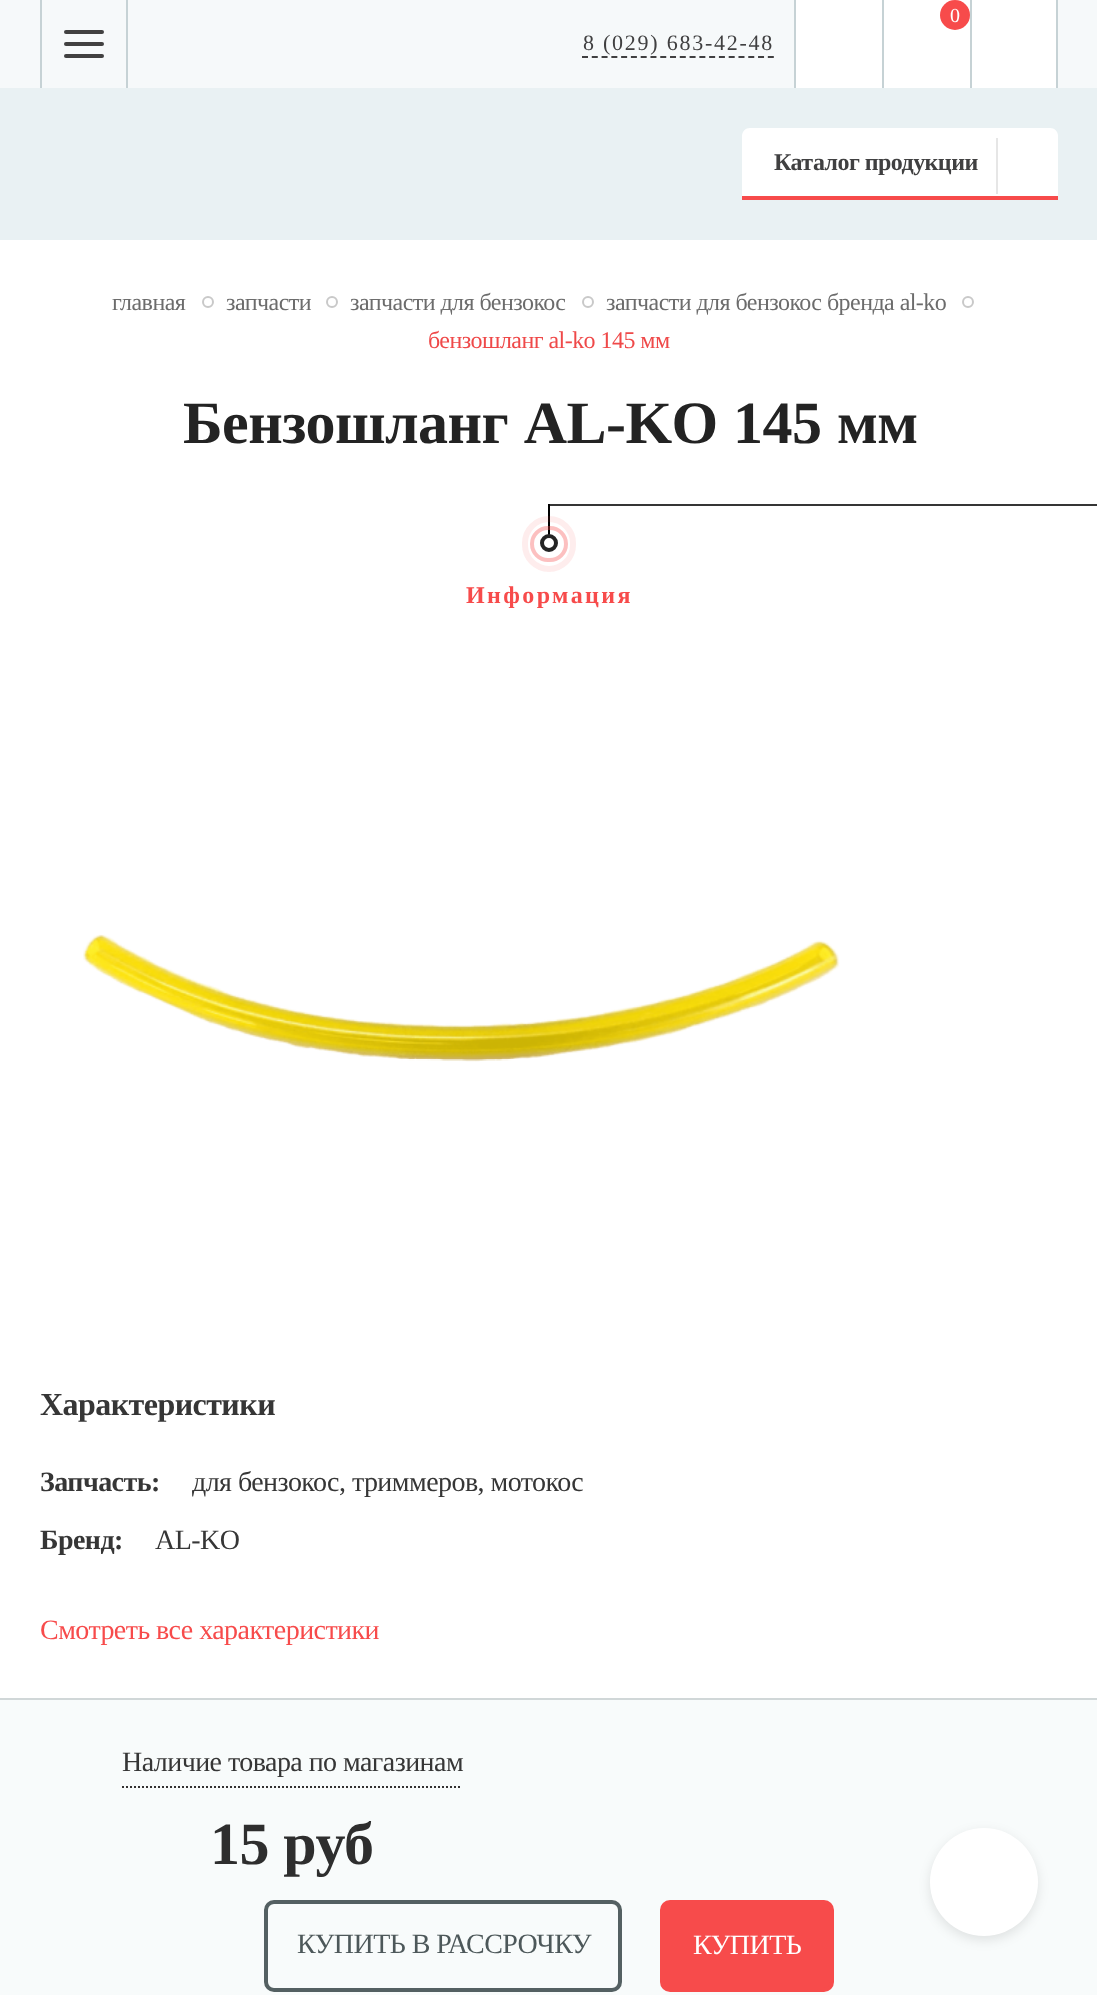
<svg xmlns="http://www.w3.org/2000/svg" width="1097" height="1995">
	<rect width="100%" height="100%" fill="#FFFFFF" />
	<rect x="0" y="88" width="1097" height="152" fill="#E9F1F3" />
	<rect x="0" y="0" width="1097" height="88" fill="#F6F9FA" />
	<rect x="126" y="0" width="2" height="88" fill="#C6D2D5" />
	<rect x="40" y="0" width="2" height="88" fill="#C6D2D5" />
	<rect x="64" y="30" width="40" height="4" rx="2" fill="#414141" />
	<rect x="64" y="42" width="40" height="4" rx="2" fill="#414141" />
	<rect x="64" y="54" width="40" height="4" rx="2" fill="#414141" />
	<path d="M582 57H774" fill="none" stroke="#404041" stroke-width="2" stroke-dasharray="6 3.78" />
	<text x="583" y="50" font-family="Liberation Serif" font-size="22" letter-spacing="1.75" fill="#404041">8 (029) 683-42-48</text>
	<rect x="796" y="0" width="86" height="88" fill="#FFFFFF" />
	<rect x="794" y="0" width="2" height="88" fill="#C6D2D5" />
	<rect x="884" y="0" width="86" height="88" fill="#FFFFFF" />
	<rect x="882" y="0" width="2" height="88" fill="#C6D2D5" />
	<circle cx="955" cy="15" r="15" fill="#F74B4B" />
	<text x="950" y="22" font-family="Liberation Serif" font-size="20" letter-spacing="-0.55" fill="#FFFFFF">0</text>
	<rect x="972" y="0" width="84" height="88" fill="#FFFFFF" />
	<rect x="970" y="0" width="2" height="88" fill="#C6D2D5" />
	<rect x="1056" y="0" width="2" height="88" fill="#C6D2D5" />
	<path d="M750 128H1050C1054.5 128 1058 131.5 1058 136V200H742V136C742 131.5 745.5 128 750 128Z" fill="#FFFFFF" />
	<rect x="742" y="196" width="316" height="4" fill="#F74B4B" />
	<text x="774" y="170" font-family="Liberation Serif" font-size="24" font-weight="700" letter-spacing="-0.55" fill="#404041">Каталог продукции</text>
	<rect x="996" y="138" width="2" height="56" fill="#E6E6E6" />
	<text x="112" y="310" font-family="Liberation Serif" font-size="24" letter-spacing="-0.55" fill="#6C6C6C">главная</text>
	<circle cx="208" cy="302" r="5" fill="none" stroke="#C9C9C9" stroke-width="2" />
	<text x="226" y="310" font-family="Liberation Serif" font-size="24" letter-spacing="-0.55" fill="#6C6C6C">запчасти</text>
	<circle cx="332" cy="302" r="5" fill="none" stroke="#C9C9C9" stroke-width="2" />
	<text x="350" y="310" font-family="Liberation Serif" font-size="24" letter-spacing="-0.55" fill="#6C6C6C">запчасти для бензокос</text>
	<circle cx="588" cy="302" r="5" fill="none" stroke="#C9C9C9" stroke-width="2" />
	<text x="606" y="310" font-family="Liberation Serif" font-size="24" letter-spacing="-0.55" fill="#6C6C6C">запчасти для бензокос бренда al-ko</text>
	<circle cx="968" cy="302" r="5" fill="none" stroke="#C9C9C9" stroke-width="2" />
	<text x="428" y="348" font-family="Liberation Serif" font-size="24" letter-spacing="-0.55" fill="#EF4949">бензошланг al-ko 145 мм</text>
	<text x="183" y="443" word-spacing="1" font-family="Liberation Serif" font-size="60" font-weight="700" letter-spacing="-0.55" fill="#232323">Бензошланг AL-KO 145 мм</text>
	<rect x="550" y="504" width="547" height="2" fill="#353535" />
	<rect x="548" y="504" width="2" height="34" fill="#000000" />
	<circle cx="549" cy="543" r="7" fill="#FFFFFF" stroke="#242424" stroke-width="4" />
	<rect x="532" y="528" width="34" height="32" rx="16" fill="none" stroke="#F74B4B" stroke-opacity="0.35" stroke-width="4" />
	<rect x="525" y="519" width="48" height="50" rx="24" fill="none" stroke="#F74B4B" stroke-opacity="0.1" stroke-width="6" />
	<text x="466" y="603" font-family="Liberation Serif" font-size="24" font-weight="700" letter-spacing="2.4" fill="#F74B4B">Информация</text>
	<image x="83" y="934" width="757" height="128" href="assets/img1.png" />
	<text x="40" y="1415" font-family="Liberation Serif" font-size="32" font-weight="700" letter-spacing="-0.55" fill="#363636">Характеристики</text>
	<text x="40" y="1491" font-family="Liberation Serif" font-size="28" font-weight="700" letter-spacing="-0.55" fill="#363636">Запчасть:</text>
	<text x="192" y="1491" font-family="Liberation Serif" font-size="28" letter-spacing="-0.55" fill="#363636">для бензокос, триммеров, мотокос</text>
	<text x="40" y="1549" font-family="Liberation Serif" font-size="28" font-weight="700" letter-spacing="-0.55" fill="#363636">Бренд:</text>
	<text x="155" y="1549" font-family="Liberation Serif" font-size="28" letter-spacing="-0.55" fill="#363636">AL-KO</text>
	<text x="40" y="1639" font-family="Liberation Serif" font-size="28" letter-spacing="-0.55" fill="#F74B4B">Смотреть все характеристики</text>
	<rect x="0" y="1700" width="1097" height="295" fill="#F8FBFB" />
	<rect x="0" y="1698" width="1097" height="2" fill="#D0D7D8" />
	<path d="M122 1787H462" fill="none" stroke="#333131" stroke-width="2" stroke-dasharray="2 2" />
	<text x="122" y="1771" font-family="Liberation Serif" font-size="28" letter-spacing="-0.55" fill="#363636">Наличие товара по магазинам</text>
	<text x="210" y="1864" font-family="Liberation Serif" font-size="60" font-weight="700" letter-spacing="-0.55" fill="#2E2E2E">15 руб</text>
	<rect x="266" y="1902" width="354" height="88" rx="8" fill="none" stroke="#546062" stroke-width="4" />
	<text x="297" y="1953" font-family="Liberation Serif" font-size="28" letter-spacing="-0.55" fill="#4D585A">КУПИТЬ В РАССРОЧКУ</text>
	<rect x="662" y="1902" width="170" height="88" rx="8" fill="#F74B4B" stroke="#F74B4B" stroke-width="4" />
	<text x="693" y="1954" font-family="Liberation Serif" font-size="28" letter-spacing="-0.55" fill="#FFFFFF">КУПИТЬ</text>
	<rect x="930" y="1832" width="108" height="108" rx="54" fill="#000000" fill-opacity="0.1" filter="blur(6px)" />
	<circle cx="984" cy="1882" r="54" fill="#FFFFFF" />
</svg>
